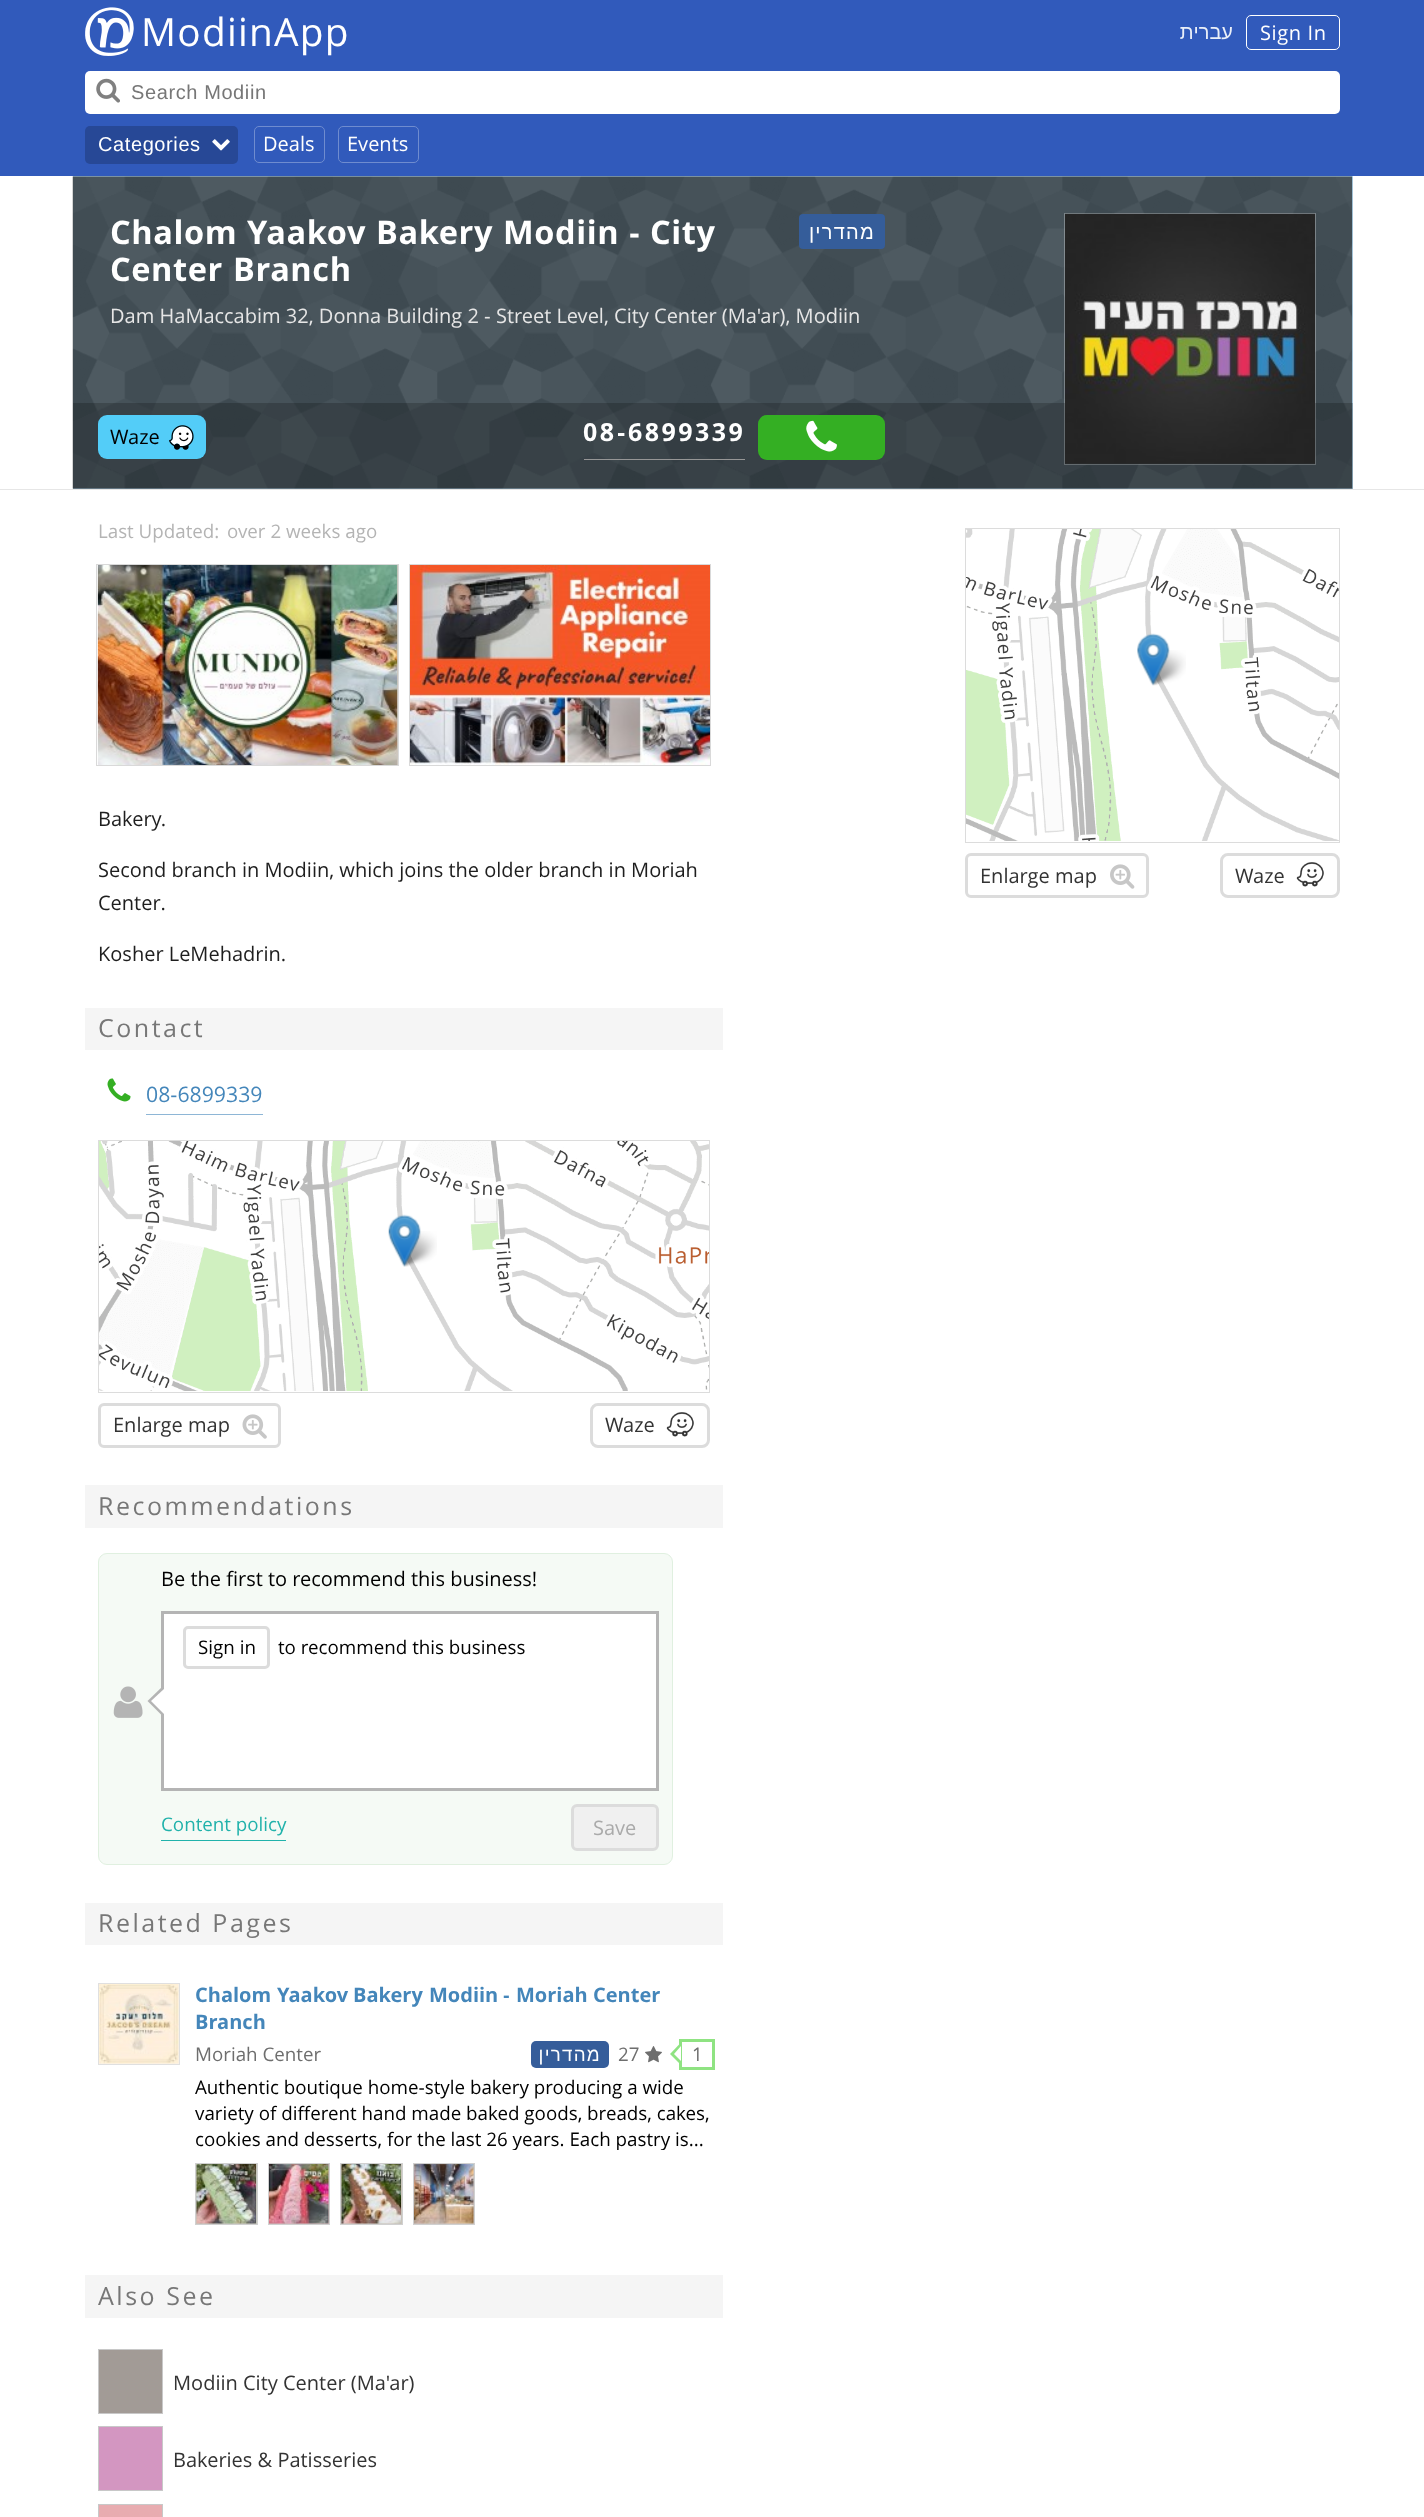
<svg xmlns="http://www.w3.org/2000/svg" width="1424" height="2517">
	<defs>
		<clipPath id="clip1"><rect x="195" y="2074" width="518" height="76" /></clipPath>
	</defs>
	<rect width="100%" height="100%" fill="#FFFFFF" />
	<rect x="0" y="0" width="1424" height="176" fill="#315ABB" />
	<image x="85" y="7" width="49" height="49" href="assets/img1.png" />
	<text x="141" y="46" font-family="Arimo" font-size="38.75" letter-spacing="1.25" fill="#FFFFFF">ModiinApp</text>
	<text x="1233" y="39" font-family="Arimo" font-size="20" direction="rtl" fill="#EAEFF8">עברית</text>
	<rect x="1246.5" y="15.5" width="93" height="34" rx="4.5" fill="none" stroke="#FFFFFF" />
	<text x="1260" y="40" font-family="Arimo" font-size="20" letter-spacing="0.6" fill="#FFFFFF">Sign In</text>
	<rect x="85" y="71" width="1255" height="43" rx="5" fill="#FFFFFF" />
	<image x="96" y="78" width="24" height="25" href="assets/img2.png" />
	<text x="131" y="99" font-family="Liberation Sans" font-size="20" letter-spacing="0.6" fill="#777777">Search Modiin</text>
	<rect x="85" y="126" width="153" height="38" rx="5" fill="#274896" />
	<text x="98" y="151" font-family="Liberation Sans" font-size="20" letter-spacing="0.6" fill="#FFFFFF">Categories</text>
	<image x="212" y="139" width="18" height="12" href="assets/img3.png" />
	<rect x="254.5" y="126.5" width="70" height="36" rx="4.5" fill="none" stroke="#6F8CCF" />
	<text x="263" y="151" font-family="Arimo" font-size="20" fill="#FFFFFF">Deals</text>
	<rect x="338.5" y="126.5" width="80" height="36" rx="4.5" fill="none" stroke="#6F8CCF" />
	<text x="347" y="151" font-family="Arimo" font-size="20" fill="#FFFFFF">Events</text>
	<rect x="0" y="489" width="1424" height="1" fill="#E6E6E6" />
	<rect x="73" y="176" width="1280" height="313" fill="#C0E7FF" />
	<image x="72" y="176" width="1281" height="313" href="assets/img4.png" />
	<g font-family="Arimo" font-size="32.5" font-weight="700" letter-spacing="0.6" fill="#FFFFFF">
		<text x="110" y="244">Chalom</text>
		<text x="247" y="244">Yaakov</text>
		<text x="376" y="244">Bakery</text>
		<text x="503" y="244">Modiin</text>
	</g>
	<text x="629" y="244" font-family="Liberation Sans" font-size="32.5" font-weight="700" letter-spacing="0.6" fill="#FFFFFF">-</text>
	<g font-family="Arimo" font-size="32.5" font-weight="700" letter-spacing="0.6" fill="#FFFFFF">
		<text x="650" y="244">City</text>
		<text x="110" y="281">Center</text>
		<text x="233" y="281">Branch</text>
	</g>
	<rect x="799" y="214" width="86" height="35" rx="4" fill="#355D9A" />
	<text x="875" y="239" font-family="Arimo" font-size="20" letter-spacing="1.25" direction="rtl" fill="#FFFFFF">מהדרין</text>
	<text x="110" y="323" font-family="Arimo" font-size="20" fill="#E6E6E6">Dam HaMaccabim 32, Donna Building 2 - Street Level, City Center (Ma'ar), Modiin</text>
	<rect x="1064.5" y="213.5" width="251" height="251" fill="none" stroke="#FFFFFF" stroke-opacity="0.3" />
	<rect x="73" y="403" width="1280" height="86" fill="#000000" fill-opacity="0.2" />
	<image x="1065" y="213" width="250" height="251" href="assets/img5.png" />
	<image x="1065" y="213" width="250" height="251" href="assets/img6.png" />
	<rect x="98" y="415" width="108" height="44" rx="9" fill="#53CDF8" />
	<text x="110" y="444" font-family="Arimo" font-size="20" fill="#000000">Waze</text>
	<image x="169" y="425" width="25" height="25" href="assets/img7.png" />
	<rect x="584" y="459" width="161" height="1" fill="#969696" />
	<text x="583" y="441" font-family="Arimo" font-size="25" font-weight="700" letter-spacing="2.5" fill="#FFFFFF">08</text>
	<text x="617" y="441" font-family="Liberation Sans" font-size="25" font-weight="700" letter-spacing="2.5" fill="#FFFFFF">-</text>
	<text x="628" y="441" font-family="Arimo" font-size="25" font-weight="700" letter-spacing="2.5" fill="#FFFFFF">6899339</text>
	<rect x="758" y="415" width="127" height="45" rx="9" fill="#34AF23" />
	<image x="806" y="420" width="31" height="32" href="assets/img8.png" />
	<g font-family="Arimo" font-size="18.75" fill="#B4B4B4">
		<text x="98" y="538">Last Updated:</text>
		<text x="227" y="538">over 2 weeks ago</text>
	</g>
	<rect x="397" y="565" width="1" height="200" fill="#CEC8BF" />
	<rect x="96.5" y="564.5" width="302" height="201" fill="none" stroke="#D9D9D9" />
	<image x="97" y="565" width="301" height="200" href="assets/img9.png" />
	<rect x="409.5" y="564.5" width="301" height="201" fill="none" stroke="#D9D9D9" />
	<image x="410" y="565" width="300" height="200" href="assets/img10.png" />
	<g font-family="Arimo" font-size="20" fill="#1E1E1E">
		<text x="98" y="826">Bakery.</text>
		<text x="98" y="877">Second branch in Modiin, which joins the older branch in Moriah</text>
		<text x="98" y="910">Center.</text>
		<text x="98" y="961">Kosher LeMehadrin.</text>
	</g>
	<rect x="85" y="1008" width="638" height="42" fill="#F5F5F5" />
	<text x="98" y="1037" font-family="Arimo" font-size="25" letter-spacing="2.5" fill="#777777">Contact</text>
	<image x="107" y="1078" width="24" height="24" href="assets/img11.png" />
	<rect x="146" y="1114" width="117" height="1" fill="#8EB6D6" />
	<text x="146" y="1102" font-family="Arimo" font-size="21.25" fill="#4486BA">08-6899339</text>
	<rect x="98.5" y="1140.5" width="611" height="252" fill="none" stroke="#DCDCDC" />
	<image x="99" y="1141" width="86" height="64" href="assets/img12.png" />
	<image x="185" y="1141" width="320" height="64" href="assets/img13.png" />
	<image x="505" y="1141" width="204" height="64" href="assets/img14.png" />
	<image x="99" y="1205" width="86" height="186" href="assets/img15.png" />
	<image x="185" y="1205" width="320" height="186" href="assets/img16.png" />
	<image x="505" y="1205" width="204" height="186" href="assets/img17.png" />
	<image x="148" y="1142" width="37" height="63" href="assets/img18.png" />
	<image x="185" y="1141" width="320" height="64" href="assets/img19.png" />
	<image x="505" y="1141" width="145" height="49" href="assets/img20.png" />
	<image x="99" y="1205" width="74" height="183" href="assets/img21.png" />
	<image x="243" y="1205" width="262" height="100" href="assets/img22.png" />
	<image x="505" y="1235" width="204" height="128" href="assets/img23.png" />
	<image x="400" y="1231" width="37" height="36" href="assets/img25.png" />
	<image x="388" y="1214" width="33" height="53" href="assets/img24.png" />
	<rect x="99.5" y="1404.5" width="180" height="42" rx="4.5" fill="none" stroke="#DCDCDC" stroke-width="3" />
	<text x="113" y="1432" font-family="Arimo" font-size="20" fill="#333333">Enlarge map</text>
	<image x="242" y="1414" width="25" height="25" href="assets/img26.png" />
	<rect x="591.5" y="1404.5" width="117" height="42" rx="6.5" fill="none" stroke="#DCDCDC" stroke-width="3" />
	<text x="605" y="1432" font-family="Arimo" font-size="20" fill="#333333">Waze</text>
	<image x="666" y="1412" width="28" height="25" href="assets/img27.png" />
	<rect x="85" y="1485" width="638" height="43" fill="#F5F5F5" />
	<text x="98" y="1515" font-family="Arimo" font-size="25" letter-spacing="2.5" fill="#777777">Recommendations</text>
	<rect x="98.5" y="1553.5" width="574" height="311" rx="8.5" fill="#F5FAF5" stroke="#E0F0E0" />
	<text x="161" y="1586" font-family="Arimo" font-size="20" fill="#000000">Be the first to recommend this business!</text>
	<rect x="162.5" y="1612.5" width="495" height="177" fill="#FFFFFF" stroke="#B4B4B4" stroke-width="3" />
	<rect x="184.5" y="1627.5" width="84" height="40" rx="3.5" fill="none" stroke="#DCDCDC" stroke-width="3" />
	<g font-family="Arimo" font-size="18.75" fill="#000000">
		<text x="198" y="1654">Sign in</text>
		<text x="278" y="1654">to recommend this business</text>
	</g>
	<image x="113" y="1686" width="30" height="32" href="assets/img28.png" />
	<path d="M164 1685V1717.5L147.5 1701Z" fill="#B4B4B4" />
	<path d="M164 1689V1714L151 1701Z" fill="#FFFFFF" />
	<rect x="161" y="1840" width="125" height="1" fill="#21B2AB" />
	<text x="161" y="1831" font-family="Arimo" font-size="18.75" fill="#21B2AB">Content policy</text>
	<rect x="572.5" y="1805.5" width="85" height="44" rx="4.5" fill="#F0F0F0" stroke="#DCDCDC" stroke-width="3" />
	<text x="593" y="1835" font-family="Arimo" font-size="20" fill="#AAAAAA">Save</text>
	<rect x="85" y="1903" width="638" height="42" fill="#F5F5F5" />
	<text x="98" y="1932" font-family="Arimo" font-size="25" letter-spacing="2.5" fill="#777777">Related Pages</text>
	<rect x="98.5" y="1983.5" width="81" height="81" fill="#F9F2E8" stroke="#E0E0E0" />
	<image x="99" y="1984" width="80" height="80" href="assets/img29.png" />
	<g font-family="Arimo" font-size="20" font-weight="700" fill="#4486BA">
		<text x="195" y="2002">Chalom</text>
		<text x="277" y="2002">Yaakov</text>
		<text x="353" y="2002">Bakery</text>
		<text x="429" y="2002">Modiin</text>
	</g>
	<text x="503" y="2002" font-family="Liberation Sans" font-size="20" font-weight="700" fill="#4486BA">-</text>
	<g font-family="Arimo" font-size="20" font-weight="700" fill="#4486BA">
		<text x="516" y="2002">Moriah</text>
		<text x="593" y="2002">Center</text>
		<text x="195" y="2029">Branch</text>
	</g>
	<text x="195" y="2061" font-family="Arimo" font-size="18.75" fill="#6E6E6E">Moriah Center</text>
	<rect x="531" y="2041" width="78" height="27" rx="5" fill="#355D9A" />
	<text x="601" y="2061" font-family="Arimo" font-size="18.75" letter-spacing="1.25" direction="rtl" fill="#FFFFFF">מהדרין</text>
	<text x="618" y="2061" font-family="Arimo" font-size="18.75" fill="#6E6E6E">27</text>
	<image x="645" y="2046" width="17" height="17" href="assets/img30.png" />
	<rect x="680.5" y="2040.5" width="33" height="28" fill="none" stroke="#8FE382" stroke-width="3" />
	<path d="M681 2042.5V2065L670 2054Z" fill="#8FE382" />
	<path d="M681 2046V2061L674 2054Z" fill="#FFFFFF" />
	<text x="692" y="2061" font-family="Arimo" font-size="18.75" fill="#6E6E6E">1</text>
	<g font-family="Arimo" font-size="18.75" fill="#000000">
		<text x="195" y="2094">Authentic boutique home-style bakery producing a wide</text>
		<text x="195" y="2120">variety of different hand made baked goods, breads, cakes,</text>
	</g>
	<g clip-path="url(#clip1)">
		<text x="195" y="2146" font-family="Arimo" font-size="18.75" fill="#000000">cookies and desserts, for the last 26 years. Each pastry is...</text>
	</g>
	<rect x="195.5" y="2163.5" width="62" height="61" fill="#C6C6BC" stroke="#D0D0D0" />
	<image x="196" y="2164" width="60" height="60" href="assets/img31.png" />
	<rect x="268.5" y="2163.5" width="61" height="61" fill="#CFB7B9" stroke="#D0D0D0" />
	<image x="269" y="2164" width="60" height="60" href="assets/img32.png" />
	<rect x="340.5" y="2163.5" width="62" height="61" fill="#CAC5BB" stroke="#D0D0D0" />
	<image x="341" y="2164" width="60" height="60" href="assets/img33.png" />
	<rect x="413.5" y="2163.5" width="61" height="61" fill="#CCC0BC" stroke="#D0D0D0" />
	<image x="414" y="2164" width="60" height="60" href="assets/img34.png" />
	<rect x="85" y="2275" width="638" height="43" fill="#F5F5F5" />
	<text x="98" y="2305" font-family="Arimo" font-size="25" letter-spacing="2.5" fill="#777777">Also See</text>
	<rect x="98.5" y="2349.5" width="64" height="64" fill="#A29B96" stroke="#C8C8C8" />
	<text x="173" y="2390" font-family="Arimo" font-size="20" fill="#333333">Modiin City Center (Ma'ar)</text>
	<rect x="98.5" y="2426.5" width="64" height="64" fill="#D396C1" stroke="#C8C8C8" />
	<text x="173" y="2467" font-family="Arimo" font-size="20" fill="#333333">Bakeries &amp; Patisseries</text>
	<rect x="98.5" y="2504.5" width="64" height="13" fill="#E8ACB0" stroke="#C8C8C8" />
	<rect x="965.5" y="528.5" width="374" height="314" fill="none" stroke="#DCDCDC" />
	<image x="966" y="529" width="288" height="95" href="assets/img35.png" />
	<image x="1254" y="529" width="85" height="95" href="assets/img36.png" />
	<image x="966" y="624" width="288" height="217" href="assets/img37.png" />
	<image x="1254" y="624" width="85" height="217" href="assets/img38.png" />
	<image x="966" y="529" width="288" height="95" href="assets/img39.png" />
	<image x="1254" y="568" width="85" height="41" href="assets/img40.png" />
	<image x="992" y="624" width="262" height="217" href="assets/img41.png" />
	<image x="1254" y="654" width="7" height="61" href="assets/img42.png" />
	<image x="1148" y="650" width="38" height="36" href="assets/img44.png" />
	<image x="1137" y="633" width="33" height="53" href="assets/img43.png" />
	<rect x="966.5" y="854.5" width="181" height="42" rx="4.5" fill="none" stroke="#DCDCDC" stroke-width="3" />
	<text x="980" y="883" font-family="Arimo" font-size="20" fill="#333333">Enlarge map</text>
	<image x="1110" y="864" width="25" height="25" href="assets/img45.png" />
	<rect x="1221.5" y="854.5" width="117" height="42" rx="6.5" fill="none" stroke="#DCDCDC" stroke-width="3" />
	<text x="1235" y="883" font-family="Arimo" font-size="20" fill="#333333">Waze</text>
	<image x="1296" y="862" width="28" height="25" href="assets/img46.png" />
</svg>
